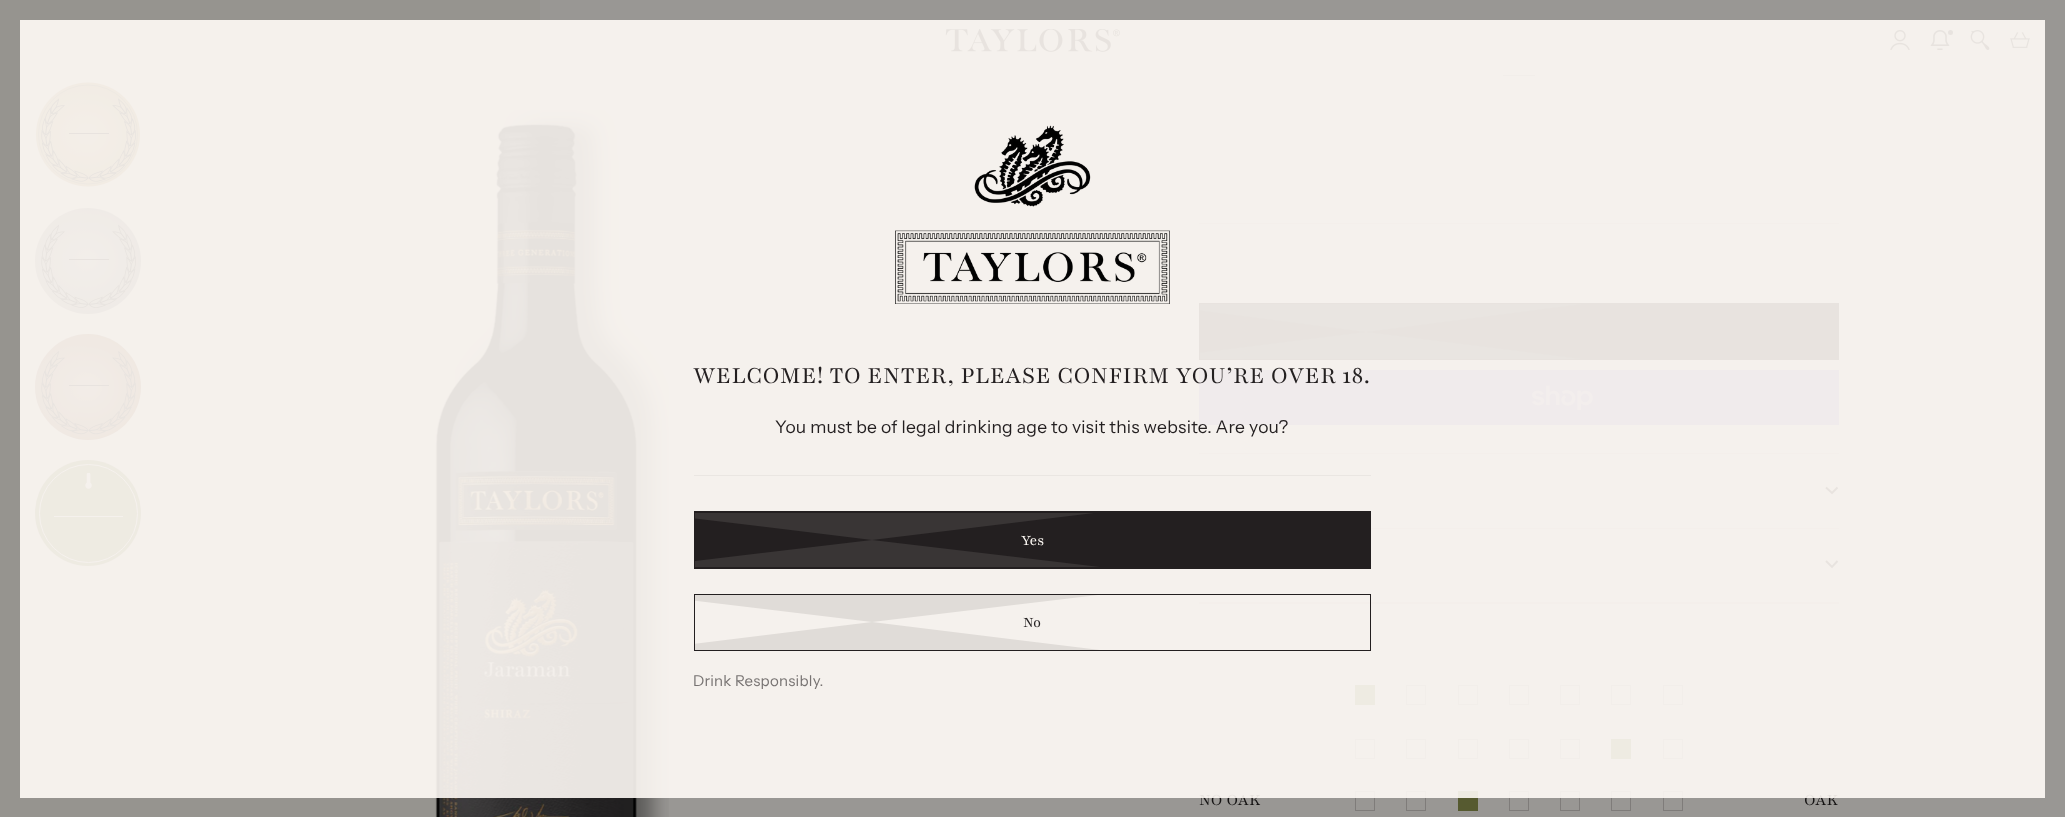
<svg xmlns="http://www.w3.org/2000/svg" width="2065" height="817">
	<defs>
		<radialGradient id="g1" gradientUnits="userSpaceOnUse" cx="88" cy="134" r="52"><stop offset="0" stop-color="#999999" stop-opacity="0.49" /><stop offset="0.5" stop-color="#999999" stop-opacity="0.24" /><stop offset="1" stop-color="#999999" stop-opacity="0" /></radialGradient>
		<linearGradient id="g2" gradientUnits="userSpaceOnUse" x1="-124" y1="134" x2="88" y2="134"><stop offset="0" stop-color="#999999" stop-opacity="0" /><stop offset="0.5" stop-color="#999999" stop-opacity="0.25" /><stop offset="1" stop-color="#999999" stop-opacity="0" /></linearGradient>
		<radialGradient id="g3" gradientUnits="userSpaceOnUse" cx="88" cy="260" r="53"><stop offset="0" stop-color="#999999" stop-opacity="0.49" /><stop offset="0.5" stop-color="#999999" stop-opacity="0.24" /><stop offset="1" stop-color="#999999" stop-opacity="0" /></radialGradient>
		<linearGradient id="g4" gradientUnits="userSpaceOnUse" x1="-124" y1="260" x2="88" y2="260"><stop offset="0" stop-color="#999999" stop-opacity="0" /><stop offset="0.5" stop-color="#999999" stop-opacity="0.25" /><stop offset="1" stop-color="#999999" stop-opacity="0" /></linearGradient>
		<radialGradient id="g5" gradientUnits="userSpaceOnUse" cx="88" cy="387" r="53"><stop offset="0" stop-color="#999999" stop-opacity="0.49" /><stop offset="0.5" stop-color="#999999" stop-opacity="0.24" /><stop offset="1" stop-color="#999999" stop-opacity="0" /></radialGradient>
		<linearGradient id="g6" gradientUnits="userSpaceOnUse" x1="-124" y1="387" x2="88" y2="387"><stop offset="0" stop-color="#999999" stop-opacity="0" /><stop offset="0.5" stop-color="#999999" stop-opacity="0.25" /><stop offset="1" stop-color="#999999" stop-opacity="0" /></linearGradient>
		<clipPath id="clip1"><rect x="1200" y="304" width="638" height="55" /></clipPath>
		<clipPath id="clip2"><rect x="695" y="513" width="675" height="55" /></clipPath>
		<clipPath id="clip3"><rect x="695" y="595" width="675" height="55" /></clipPath>
	</defs>
	<rect width="100%" height="100%" fill="#999794" />
	<image x="945" y="29" width="175" height="23" href="assets/img1.png" />
	<image x="1890" y="30" width="20" height="20" href="assets/img2.png" />
	<image x="1930" y="30" width="20" height="20" href="assets/img3.png" />
	<circle cx="1950.5" cy="32.5" r="2.5" fill="#151313" />
	<image x="1970" y="30" width="20" height="20" href="assets/img4.png" />
	<image x="2010" y="32" width="20" height="16" href="assets/img5.png" />
	<rect x="0" y="0" width="540" height="817" fill="#96948F" />
	<circle cx="88" cy="134.5" r="52" fill="#796740" />
	<circle cx="88" cy="134.5" r="52" fill="url(#g1)" />
	<circle cx="88" cy="134.5" r="49.5" fill="none" stroke="#181818" stroke-width="0.4" />
	<path d="M88 81C94 81 100 82 106 84L70 185C29 170 22 114 58 90C67 84 77 81 88 81Z" fill="url(#g2)" />
	<image x="41" y="98" width="95" height="84" href="assets/img7.png" />
	<rect x="69" y="133" width="40" height="1" fill="#151313" />
	<path d="M88 208C117 208 141 232 141 261C141 290 117 314 88 314C59 314 35 290 35 261C35 232 59 208 88 208Z" fill="#615F5A" />
	<path d="M88 208C117 208 141 232 141 261C141 290 117 314 88 314C59 314 35 290 35 261C35 232 59 208 88 208Z" fill="url(#g3)" />
	<path d="M88 208C94 208 100 209 106 211L70 311C49 303 35 284 35 261C35 232 59 208 88 208Z" fill="url(#g4)" />
	<image x="41" y="224" width="95" height="84" href="assets/img8.png" />
	<rect x="69" y="259" width="40" height="1" fill="#151313" />
	<path d="M88 334C117 334 141 358 141 387C141 416 117 440 88 440C59 440 35 416 35 387C35 358 59 334 88 334Z" fill="#63442F" />
	<path d="M88 334C117 334 141 358 141 387C141 416 117 440 88 440C59 440 35 416 35 387C35 358 59 334 88 334Z" fill="url(#g5)" />
	<path d="M88 334C94 334 100 335 106 337L70 437C50 430 35 410 35 387C35 358 59 334 88 334Z" fill="url(#g6)" />
	<image x="41" y="351" width="95" height="84" href="assets/img9.png" />
	<rect x="69" y="385" width="40" height="1" fill="#151313" />
	<circle cx="88" cy="513" r="53" fill="#565A30" />
	<circle cx="88.5" cy="513.5" r="49" fill="none" stroke="#999999" />
	<image x="85" y="473" width="7" height="16" href="assets/img10.png" />
	<rect x="54" y="516" width="69" height="1" fill="#999999" />
	<image x="455" y="110" width="214" height="707" href="assets/img11.png" />
	<image x="435" y="124" width="202" height="693" href="assets/img12.png" />
	<rect x="1503" y="75" width="32" height="1" fill="#7F7C7A" />
	<rect x="1199" y="223" width="640" height="1" fill="#8A8885" />
	<rect x="1199" y="303" width="640" height="57" fill="#151313" />
	<g clip-path="url(#clip1)">
		<path d="M1581 359H1151L1366 332ZM1582 304L1366 332L1150 304Z" fill="#222020" fill-rule="evenodd" />
	</g>
	<rect x="1199" y="370" width="640" height="55" fill="#665B91" />
	<image x="1532" y="385" width="61" height="25" href="assets/img13.png" />
	<path d="M1199 528V529H1839V454V528Z" fill="#8C8987" />
	<rect x="1199" y="453" width="640" height="1" fill="#8C8987" />
	<path d="M1837.5 487.5L1832 493L1826 487.5" fill="none" stroke="#151313" stroke-width="1.9" />
	<path d="M1199 602V604H1839V529V602Z" fill="#8C8987" />
	<path d="M1837.5 561L1832 567L1826 561" fill="none" stroke="#151313" stroke-width="1.9" />
	<rect x="1355" y="685" width="20" height="20" fill="#565A30" />
	<rect x="1406.5" y="685.5" width="19" height="19" fill="none" stroke="#7F7C7A" />
	<rect x="1458.5" y="685.5" width="19" height="19" fill="none" stroke="#7F7C7A" />
	<rect x="1509.5" y="685.5" width="19" height="19" fill="none" stroke="#7F7C7A" />
	<rect x="1560.5" y="685.5" width="19" height="19" fill="none" stroke="#7F7C7A" />
	<rect x="1611.5" y="685.5" width="19" height="19" fill="none" stroke="#7F7C7A" />
	<rect x="1663.5" y="685.5" width="19" height="19" fill="none" stroke="#7F7C7A" />
	<rect x="1355.5" y="739.5" width="19" height="19" fill="none" stroke="#7F7C7A" />
	<rect x="1406.5" y="739.5" width="19" height="19" fill="none" stroke="#7F7C7A" />
	<rect x="1458.5" y="739.5" width="19" height="19" fill="none" stroke="#7F7C7A" />
	<rect x="1509.5" y="739.5" width="19" height="19" fill="none" stroke="#7F7C7A" />
	<rect x="1560.5" y="739.5" width="19" height="19" fill="none" stroke="#7F7C7A" />
	<rect x="1611" y="739" width="20" height="20" fill="#565A30" />
	<rect x="1663.5" y="739.5" width="19" height="19" fill="none" stroke="#7F7C7A" />
	<text x="1199" y="805" font-family="Playfair" font-size="17.5" letter-spacing="0.25" fill="#151313">NO OAK</text>
	<rect x="1355.5" y="791.5" width="19" height="19" fill="none" stroke="#7F7C7A" />
	<rect x="1406.5" y="791.5" width="19" height="19" fill="none" stroke="#7F7C7A" />
	<rect x="1458" y="791" width="20" height="20" fill="#565A30" />
	<rect x="1509.5" y="791.5" width="19" height="19" fill="none" stroke="#7F7C7A" />
	<rect x="1560.5" y="791.5" width="19" height="19" fill="none" stroke="#7F7C7A" />
	<rect x="1611.5" y="791.5" width="19" height="19" fill="none" stroke="#7F7C7A" />
	<rect x="1663.5" y="791.5" width="19" height="19" fill="none" stroke="#7F7C7A" />
	<text x="1804" y="805" font-family="Playfair" font-size="17.5" letter-spacing="0.25" fill="#151313">OAK</text>
	<rect x="20" y="20" width="2025" height="778" fill="#FFFBF6" fill-opacity="0.9" />
	<image x="895" y="125" width="275" height="179" href="assets/img6.png" />
	<text x="693" y="383" font-family="'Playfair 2'" font-size="26" letter-spacing="0.5" fill="#231F20">WELCOME! TO ENTER, PLEASE CONFIRM YOU’RE OVER 18.</text>
	<text x="775" y="433" font-family="Instrument Sans" font-size="17.5" letter-spacing="0.25" fill="#231F20">You must be of legal drinking age to visit this website. Are you?</text>
	<rect x="694" y="475" width="677" height="1" fill="#EAE6E2" />
	<rect x="694" y="511" width="677" height="58" fill="#231F20" />
	<text x="1021" y="545" font-family="'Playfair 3'" font-size="16" fill="#FFFBF6">Yes</text>
	<g clip-path="url(#clip2)">
		<path d="M1094 513H651L872 540L645 567H1100L872 540Z" fill="#393535" />
	</g>
	<rect x="694.5" y="594.5" width="676" height="56" fill="none" stroke="#231F20" />
	<text x="1023" y="627" font-family="'Playfair 3'" font-size="16" fill="#231F20">No</text>
	<g clip-path="url(#clip3)">
		<path d="M1098 595H647L872 622L645 650H1100L872 622Z" fill="#E0DCD8" />
	</g>
	<text x="693" y="686" font-family="Instrument Sans" font-size="15" letter-spacing="0.25" fill="#777372">Drink Responsibly.</text>
</svg>
